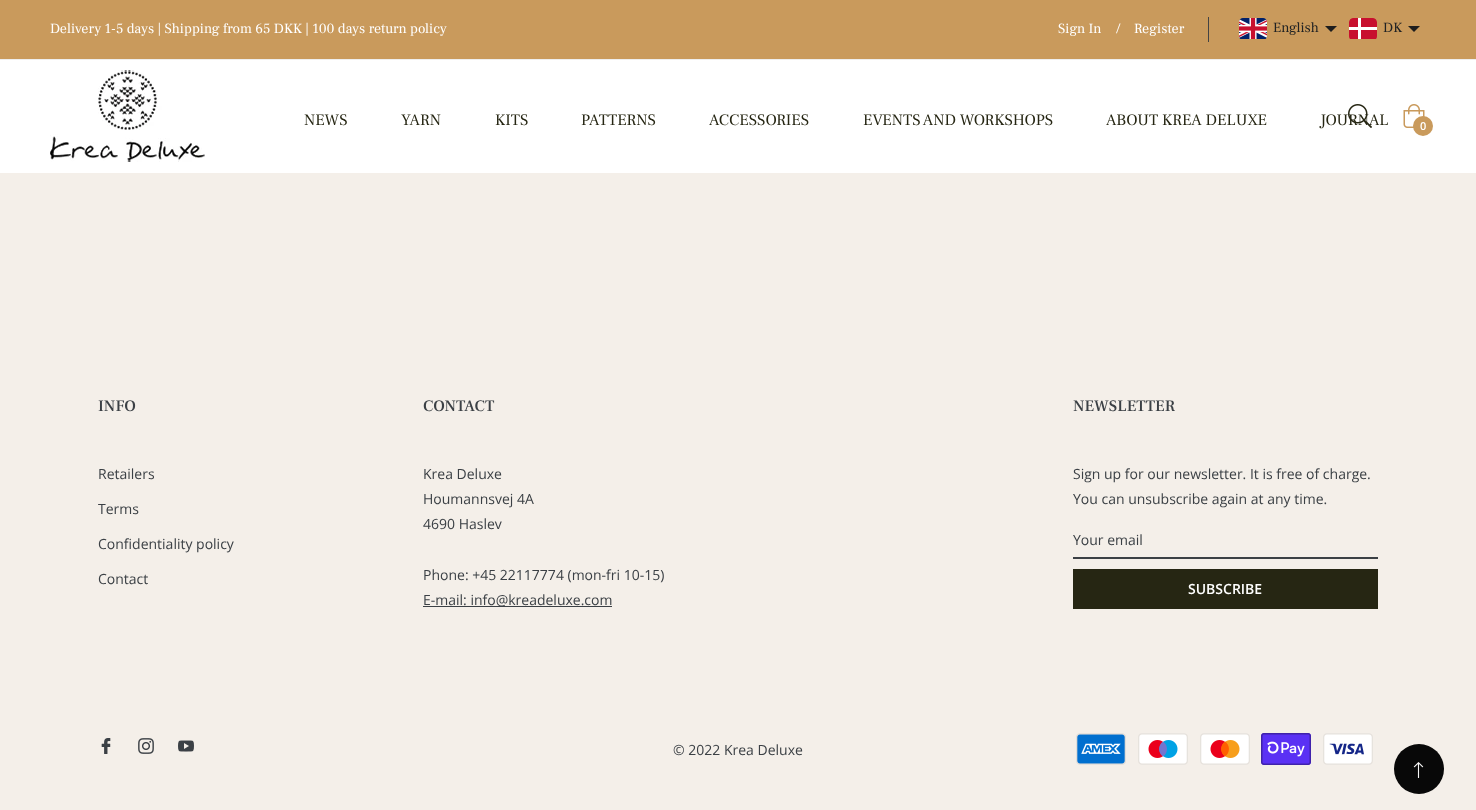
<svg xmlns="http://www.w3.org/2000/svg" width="1476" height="810">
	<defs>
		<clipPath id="clip1"><rect x="1349" y="18" width="28" height="22" rx="4" /></clipPath>
	</defs>
	<rect width="100%" height="100%" fill="#F4EFE9" />
	<rect x="0" y="0" width="1476" height="173" fill="#000000" fill-opacity="0.2" filter="blur(0.5px)" />
	<rect x="0" y="60" width="1476" height="113" fill="#FFFFFF" />
	<rect x="0" y="0" width="1476" height="59" fill="#C99A5C" />
	<rect x="0" y="59" width="1476" height="1" fill="#EEEEEE" />
	<text x="50" y="33" font-family="Frank Ruhl Libre" font-size="14" fill="#FFFFFF">Delivery 1-5 days | Shipping from 65 DKK | 100 days return policy</text>
	<rect x="1208" y="17" width="1" height="25" fill="#434343" />
	<g font-family="Frank Ruhl Libre" font-size="14" fill="#FFFFFF">
		<text x="1058" y="33">Sign In</text>
		<text x="1116" y="33">/</text>
		<text x="1134" y="33">Register</text>
	</g>
	<image x="1239" y="18" width="28" height="21" href="assets/img1.png" />
	<text x="1273" y="32" font-family="Frank Ruhl Libre" font-size="14" fill="#202223">English</text>
	<path d="M1325 26H1337L1331 32Z" fill="#1D1D1D" />
	<g clip-path="url(#clip1)">
		<path d="M1353 18H1373C1375 18 1377 20 1377 22V39H1349V22C1349 20 1351 18 1353 18Z" fill="#C8102E" />
	</g>
	<rect x="1358" y="18" width="3" height="21" fill="#FFFFFF" />
	<rect x="1349" y="27" width="28" height="3" fill="#FFFFFF" />
	<text x="1383" y="32" font-family="Frank Ruhl Libre" font-size="14" fill="#202223">DK</text>
	<path d="M1408 26H1420L1414 32Z" fill="#1D1D1D" />
	<image x="50" y="70" width="155" height="92" href="assets/img2.png" />
	<g font-family="Frank Ruhl Libre" font-size="16" fill="#262613">
		<text x="304" y="125">NEWS</text>
		<text x="401" y="125">YARN</text>
		<text x="495" y="125">KITS</text>
		<text x="581" y="125">PATTERNS</text>
		<text x="709" y="125">ACCESSORIES</text>
		<text x="863" y="125">EVENTS AND WORKSHOPS</text>
		<text x="1106" y="125">ABOUT KREA DELUXE</text>
		<text x="1320" y="125">JOURNAL</text>
	</g>
	<image x="1348" y="104" width="24" height="24" href="assets/img3.png" />
	<image x="1403" y="104" width="22" height="24" href="assets/img4.png" />
	<circle cx="1423" cy="126" r="10" fill="#C99A5C" />
	<text x="1420" y="130" font-family="Open Sans" font-size="11" font-weight="600" fill="#FFFFFF">0</text>
	<text x="98" y="411" font-family="Frank Ruhl Libre" font-size="16" font-weight="500" fill="#3B4045">INFO</text>
	<g font-family="Open Sans" font-size="14" fill="#3B4045">
		<text x="98" y="479">Retailers</text>
		<text x="98" y="514">Terms</text>
		<text x="98" y="549">Confidentiality policy</text>
		<text x="98" y="584">Contact</text>
	</g>
	<text x="423" y="411" font-family="Frank Ruhl Libre" font-size="16" font-weight="500" fill="#3B4045">CONTACT</text>
	<g font-family="Open Sans" font-size="14" fill="#3B4045">
		<text x="423" y="479">Krea Deluxe</text>
		<text x="423" y="504">Houmannsvej 4A</text>
		<text x="423" y="529">4690 Haslev</text>
		<text x="423" y="580">Phone: +45 22117774 (mon-fri 10-15)</text>
	</g>
	<rect x="423" y="606" width="189" height="1" fill="#3B4045" />
	<text x="423" y="605" font-family="Open Sans" font-size="14" fill="#3B4045">E-mail: info@kreadeluxe.com</text>
	<text x="1073" y="411" font-family="Frank Ruhl Libre" font-size="16" font-weight="500" fill="#3B4045">NEWSLETTER</text>
	<g font-family="Open Sans" font-size="14" fill="#3B4045">
		<text x="1073" y="479">Sign up for our newsletter. It is free of charge.</text>
		<text x="1073" y="504">You can unsubscribe again at any time.</text>
	</g>
	<rect x="1073" y="557" width="305" height="2" fill="#3B4045" />
	<text x="1073" y="545" font-family="Open Sans" font-size="14" fill="#3B4045">Your email</text>
	<rect x="1073" y="569" width="305" height="40" fill="#262613" />
	<text x="1188" y="594" font-family="Open Sans" font-size="14" font-weight="600" fill="#FFFFFF">SUBSCRIBE</text>
	<image x="101" y="738" width="10" height="16" href="assets/img5.png" />
	<image x="138" y="738" width="16" height="16" href="assets/img6.png" />
	<image x="178" y="740" width="16" height="12" href="assets/img7.png" />
	<text x="673" y="755" font-family="Open Sans" font-size="14" fill="#3B4045">© 2022 Krea Deluxe</text>
	<image x="1076" y="733" width="50" height="32" href="assets/img8.png" />
	<image x="1138" y="733" width="50" height="32" href="assets/img9.png" />
	<image x="1200" y="733" width="50" height="32" href="assets/img10.png" />
	<image x="1261" y="733" width="50" height="32" href="assets/img11.png" />
	<image x="1323" y="733" width="50" height="32" href="assets/img12.png" />
	<circle cx="1419" cy="769" r="25" fill="#080808" />
	<image x="1413" y="762" width="11" height="16" href="assets/img13.png" />
</svg>
